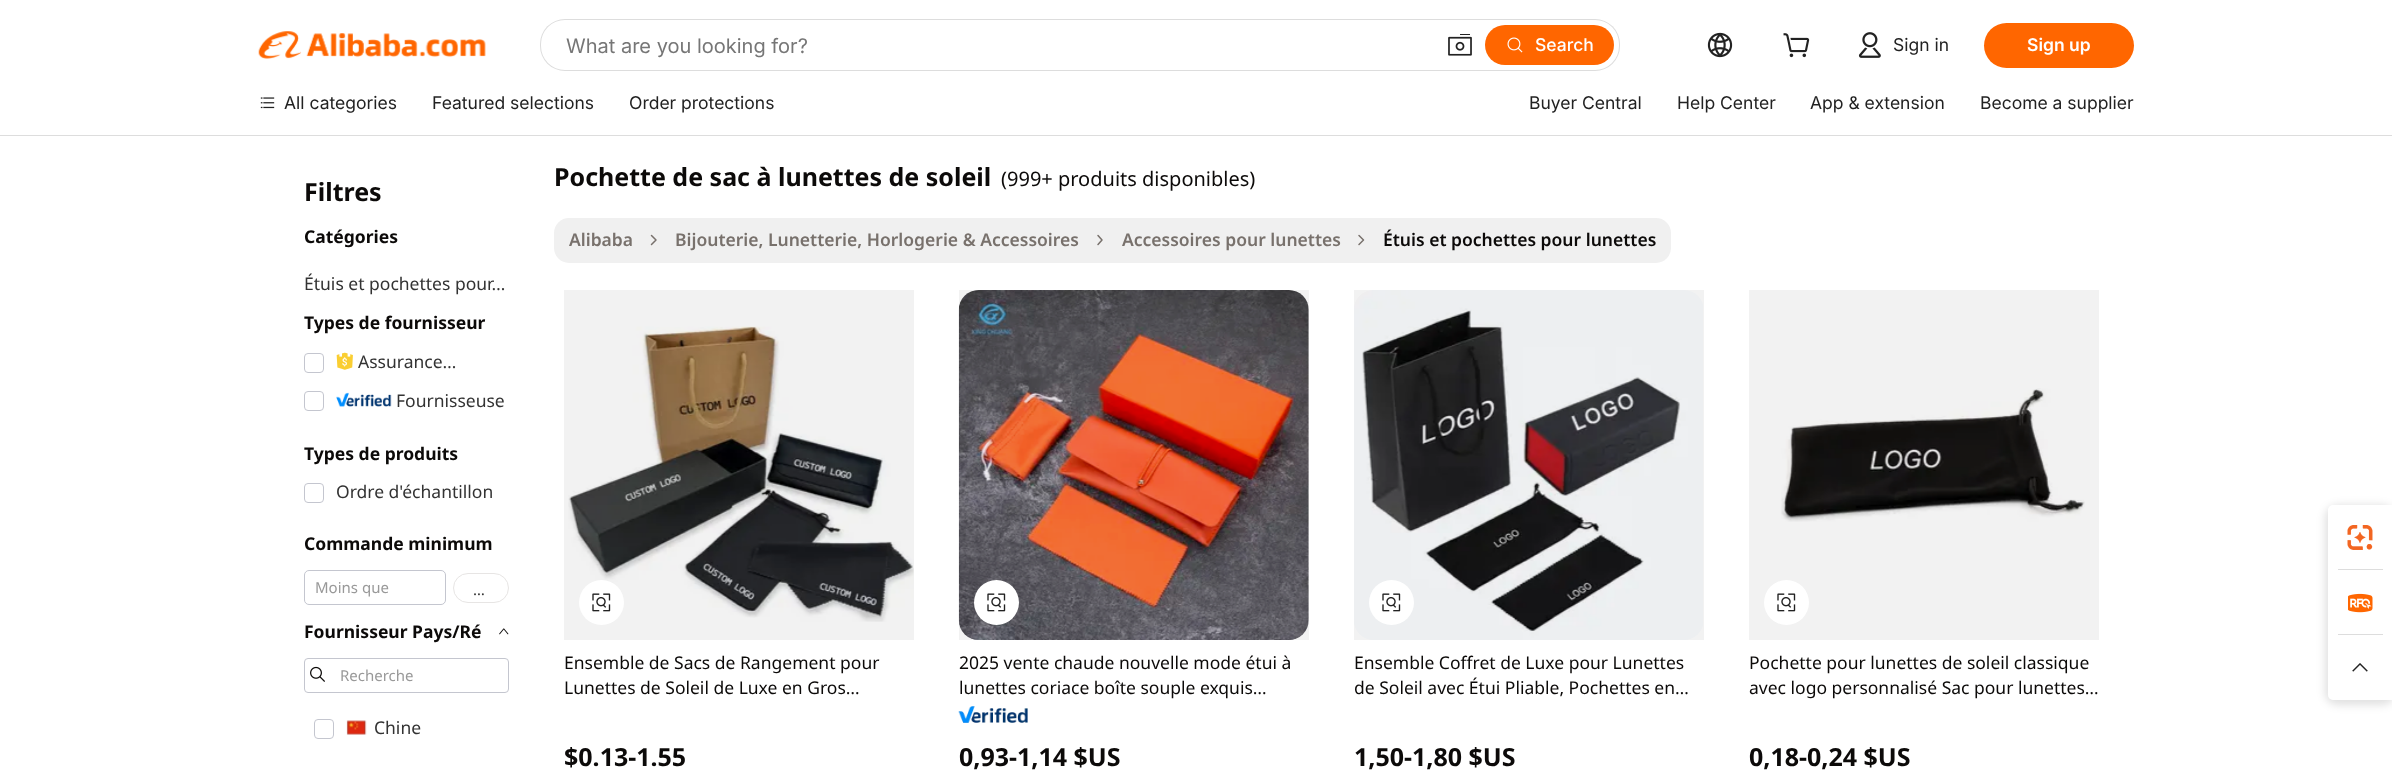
<svg xmlns="http://www.w3.org/2000/svg" width="2392" height="775">
	<rect width="100%" height="100%" fill="#FFFFFF" />
	<rect x="0" y="135" width="2392" height="1" fill="#DDDDDD" />
	<image x="258" y="31" width="228" height="28" href="assets/img1.png" />
	<rect x="540" y="19" width="1080" height="52" rx="25" fill="#DDDDDD" />
	<rect x="541" y="20" width="1078" height="50" rx="24" fill="#FFFFFF" />
	<text x="566" y="53" font-family="Inter" font-size="20" fill="#767676">What are you looking for?</text>
	<image x="1448" y="34" width="24" height="22" href="assets/img2.png" />
	<rect x="1485" y="25" width="129" height="40" rx="20" fill="#FF6600" />
	<image x="1507" y="37" width="16" height="16" href="assets/img3.png" />
	<text x="1535" y="51" font-family="Inter" font-size="17.5" font-weight="500" fill="#FFFFFF">Search</text>
	<image x="1707" y="32" width="26" height="26" href="assets/img4.png" />
	<image x="1783" y="33" width="27" height="25" href="assets/img5.png" />
	<image x="1858" y="32" width="23" height="26" href="assets/img6.png" />
	<text x="1893" y="51" font-family="Inter" font-size="17.5" fill="#222222">Sign in</text>
	<rect x="1984" y="23" width="150" height="45" rx="22.5" fill="#FF6600" />
	<text x="2027" y="51" font-family="Inter" font-size="17.5" font-weight="600" fill="#FFFFFF">Sign up</text>
	<image x="260" y="97" width="15" height="12" href="assets/img7.png" />
	<g font-family="Inter" font-size="17.5" fill="#222222">
		<text x="284" y="109">All categories</text>
		<text x="432" y="109">Featured selections</text>
		<text x="629" y="109">Order protections</text>
		<text x="1529" y="109">Buyer Central</text>
		<text x="1677" y="109">Help Center</text>
		<text x="1810" y="109">App &amp; extension</text>
		<text x="1980" y="109">Become a supplier</text>
	</g>
	<text x="304" y="201" font-family="Noto Sans" font-size="25" font-weight="700" fill="#0C0A09">Filtres</text>
	<text x="304" y="243" font-family="Noto Sans" font-size="17.5" font-weight="700" fill="#0C0A09">Catégories</text>
	<text x="304" y="290" font-family="Noto Sans" font-size="17.5" fill="#333333">Étuis et pochettes pour…</text>
	<text x="304" y="329" font-family="Noto Sans" font-size="17.5" font-weight="700" fill="#0C0A09">Types de fournisseur</text>
	<rect x="304.5" y="353.5" width="19" height="19" rx="3.5" fill="none" stroke="#C4C6CF" />
	<image x="336" y="352" width="17" height="18" href="assets/img8.png" />
	<text x="358" y="368" font-family="Noto Sans" font-size="17.5" fill="#333333">Assurance…</text>
	<rect x="304.5" y="391.5" width="19" height="19" rx="3.5" fill="none" stroke="#C4C6CF" />
	<image x="336" y="392" width="56" height="15" href="assets/img9.png" />
	<text x="396" y="407" font-family="Noto Sans" font-size="17.5" fill="#333333">Fournisseuse</text>
	<text x="304" y="460" font-family="Noto Sans" font-size="17.5" font-weight="700" fill="#0C0A09">Types de produits</text>
	<rect x="304.5" y="483.5" width="19" height="19" rx="3.5" fill="none" stroke="#C4C6CF" />
	<text x="336" y="498" font-family="Noto Sans" font-size="17.5" fill="#333333">Ordre d'échantillon</text>
	<text x="304" y="550" font-family="Noto Sans" font-size="17.5" font-weight="700" fill="#0C0A09">Commande minimum</text>
	<rect x="304.5" y="570.5" width="141" height="34" rx="4.5" fill="none" stroke="#C4C6CF" />
	<text x="315" y="593" font-family="Noto Sans" font-size="15" fill="#999999">Moins que</text>
	<rect x="453.5" y="573.5" width="55" height="29" rx="14.5" fill="none" stroke="#E7E5E4" />
	<text x="473" y="595" font-family="Noto Sans" font-size="15" fill="#333333">…</text>
	<text x="304" y="638" font-family="Noto Sans" font-size="17.5" font-weight="700" fill="#0C0A09">Fournisseur Pays/Ré</text>
	<image x="499" y="628" width="10" height="7" href="assets/img10.png" />
	<rect x="304.5" y="658.5" width="204" height="34" rx="3.5" fill="none" stroke="#C4C6CF" />
	<image x="310" y="666" width="15" height="16" href="assets/img11.png" />
	<text x="340" y="681" font-family="Noto Sans" font-size="15" fill="#999999">Recherche</text>
	<rect x="314.5" y="719.5" width="19" height="19" rx="3.5" fill="none" stroke="#C4C6CF" />
	<image x="346" y="720" width="21" height="15" href="assets/img12.png" />
	<text x="374" y="734" font-family="Noto Sans" font-size="17.5" fill="#333333">Chine</text>
	<text x="554" y="186" font-family="Noto Sans" font-size="25" font-weight="700" fill="#0C0A09">Pochette de sac à lunettes de soleil</text>
	<text x="1001" y="186" font-family="Noto Sans" font-size="20" fill="#0C0A09">(999+ produits disponibles)</text>
	<rect x="554" y="218" width="1117" height="45" rx="15" fill="#F0F0F0" />
	<text x="569" y="246" font-family="Noto Sans" font-size="17.5" font-weight="600" fill="#78716C">Alibaba</text>
	<path d="M651.5 244.5L656 240L651.5 235.5" fill="none" stroke="#78716C" stroke-width="1.5" stroke-linecap="round" stroke-linejoin="round" />
	<text x="675" y="246" font-family="Noto Sans" font-size="17.5" font-weight="600" fill="#78716C">Bijouterie, Lunetterie, Horlogerie &amp; Accessoires</text>
	<path d="M1098 244.5L1102 240L1098 235.5" fill="none" stroke="#78716C" stroke-width="1.5" stroke-linecap="round" stroke-linejoin="round" />
	<text x="1122" y="246" font-family="Noto Sans" font-size="17.5" font-weight="600" fill="#78716C">Accessoires pour lunettes</text>
	<path d="M1359 244.5L1363.5 240L1359 235.5" fill="none" stroke="#78716C" stroke-width="1.5" stroke-linecap="round" stroke-linejoin="round" />
	<text x="1383" y="246" font-family="Noto Sans" font-size="17.5" font-weight="600" fill="#0C0A09">Étuis et pochettes pour lunettes</text>
	<image x="568" y="326" width="346" height="296" href="assets/img13.png" />
	<rect x="564" y="290" width="350" height="350" fill="#000000" fill-opacity="0.05" />
	<circle cx="601.5" cy="602.5" r="22.5" fill="#FFFFFF" />
	<image x="592" y="593" width="19" height="19" href="assets/img14.png" />
	<g font-family="Noto Sans" font-size="17.5" fill="#0C0A09">
		<text x="564" y="669">Ensemble de Sacs de Rangement pour</text>
		<text x="564" y="694">Lunettes de Soleil de Luxe en Gros…</text>
	</g>
	<text x="564" y="766" font-family="Noto Sans" font-size="25" font-weight="700" fill="#0C0A09">$0.13-1.55</text>
	<image x="958" y="290" width="351" height="350" href="assets/img15.png" />
	<rect x="959" y="290" width="350" height="350" fill="#000000" fill-opacity="0.05" />
	<circle cx="996.5" cy="602.5" r="22.5" fill="#FFFFFF" />
	<image x="987" y="593" width="19" height="19" href="assets/img14.png" />
	<g font-family="Noto Sans" font-size="17.5" fill="#0C0A09">
		<text x="959" y="669">2025 vente chaude nouvelle mode étui à</text>
		<text x="959" y="694">lunettes coriace boîte souple exquis…</text>
	</g>
	<image x="958" y="706" width="70" height="17" href="assets/img16.png" />
	<text x="959" y="766" font-family="Noto Sans" font-size="25" font-weight="700" fill="#0C0A09">0,93-1,14 $US</text>
	<image x="1354" y="290" width="349" height="350" href="assets/img17.png" />
	<rect x="1354" y="290" width="350" height="350" fill="#000000" fill-opacity="0.05" />
	<circle cx="1391.5" cy="602.5" r="22.5" fill="#FFFFFF" />
	<image x="1382" y="593" width="19" height="19" href="assets/img14.png" />
	<g font-family="Noto Sans" font-size="17.5" fill="#0C0A09">
		<text x="1354" y="669">Ensemble Coffret de Luxe pour Lunettes</text>
		<text x="1354" y="694">de Soleil avec Étui Pliable, Pochettes en…</text>
	</g>
	<text x="1354" y="766" font-family="Noto Sans" font-size="25" font-weight="700" fill="#0C0A09">1,50-1,80 $US</text>
	<image x="1781" y="388" width="304" height="134" href="assets/img18.png" />
	<rect x="1749" y="290" width="350" height="350" fill="#000000" fill-opacity="0.05" />
	<circle cx="1786.5" cy="602.5" r="22.5" fill="#FFFFFF" />
	<image x="1777" y="593" width="19" height="19" href="assets/img14.png" />
	<g font-family="Noto Sans" font-size="17.5" fill="#0C0A09">
		<text x="1749" y="669">Pochette pour lunettes de soleil classique</text>
		<text x="1749" y="694">avec logo personnalisé Sac pour lunettes…</text>
	</g>
	<text x="1749" y="766" font-family="Noto Sans" font-size="25" font-weight="700" fill="#0C0A09">0,18-0,24 $US</text>
	<rect x="2325" y="505" width="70" height="200" rx="13" fill="#000000" fill-opacity="0.12" filter="blur(4px)" />
	<path d="M2338 505H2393V700H2338C2332.5 700 2328 695.5 2328 690V515C2328 509.5 2332.5 505 2338 505Z" fill="#FFFFFF" />
	<rect x="2328" y="505" width="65" height="65" rx="5" fill="#FFFFFF" />
	<image x="2347" y="525" width="26" height="25" href="assets/img19.png" />
	<rect x="2338" y="569" width="45" height="1" fill="#DDDDDD" />
	<image x="2348" y="593" width="25" height="20" href="assets/img20.png" />
	<rect x="2338" y="634" width="45" height="1" fill="#DDDDDD" />
	<rect x="2328" y="635" width="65" height="65" rx="5" fill="#FFFFFF" />
	<image x="2352" y="663" width="16" height="9" href="assets/img21.png" />
</svg>
